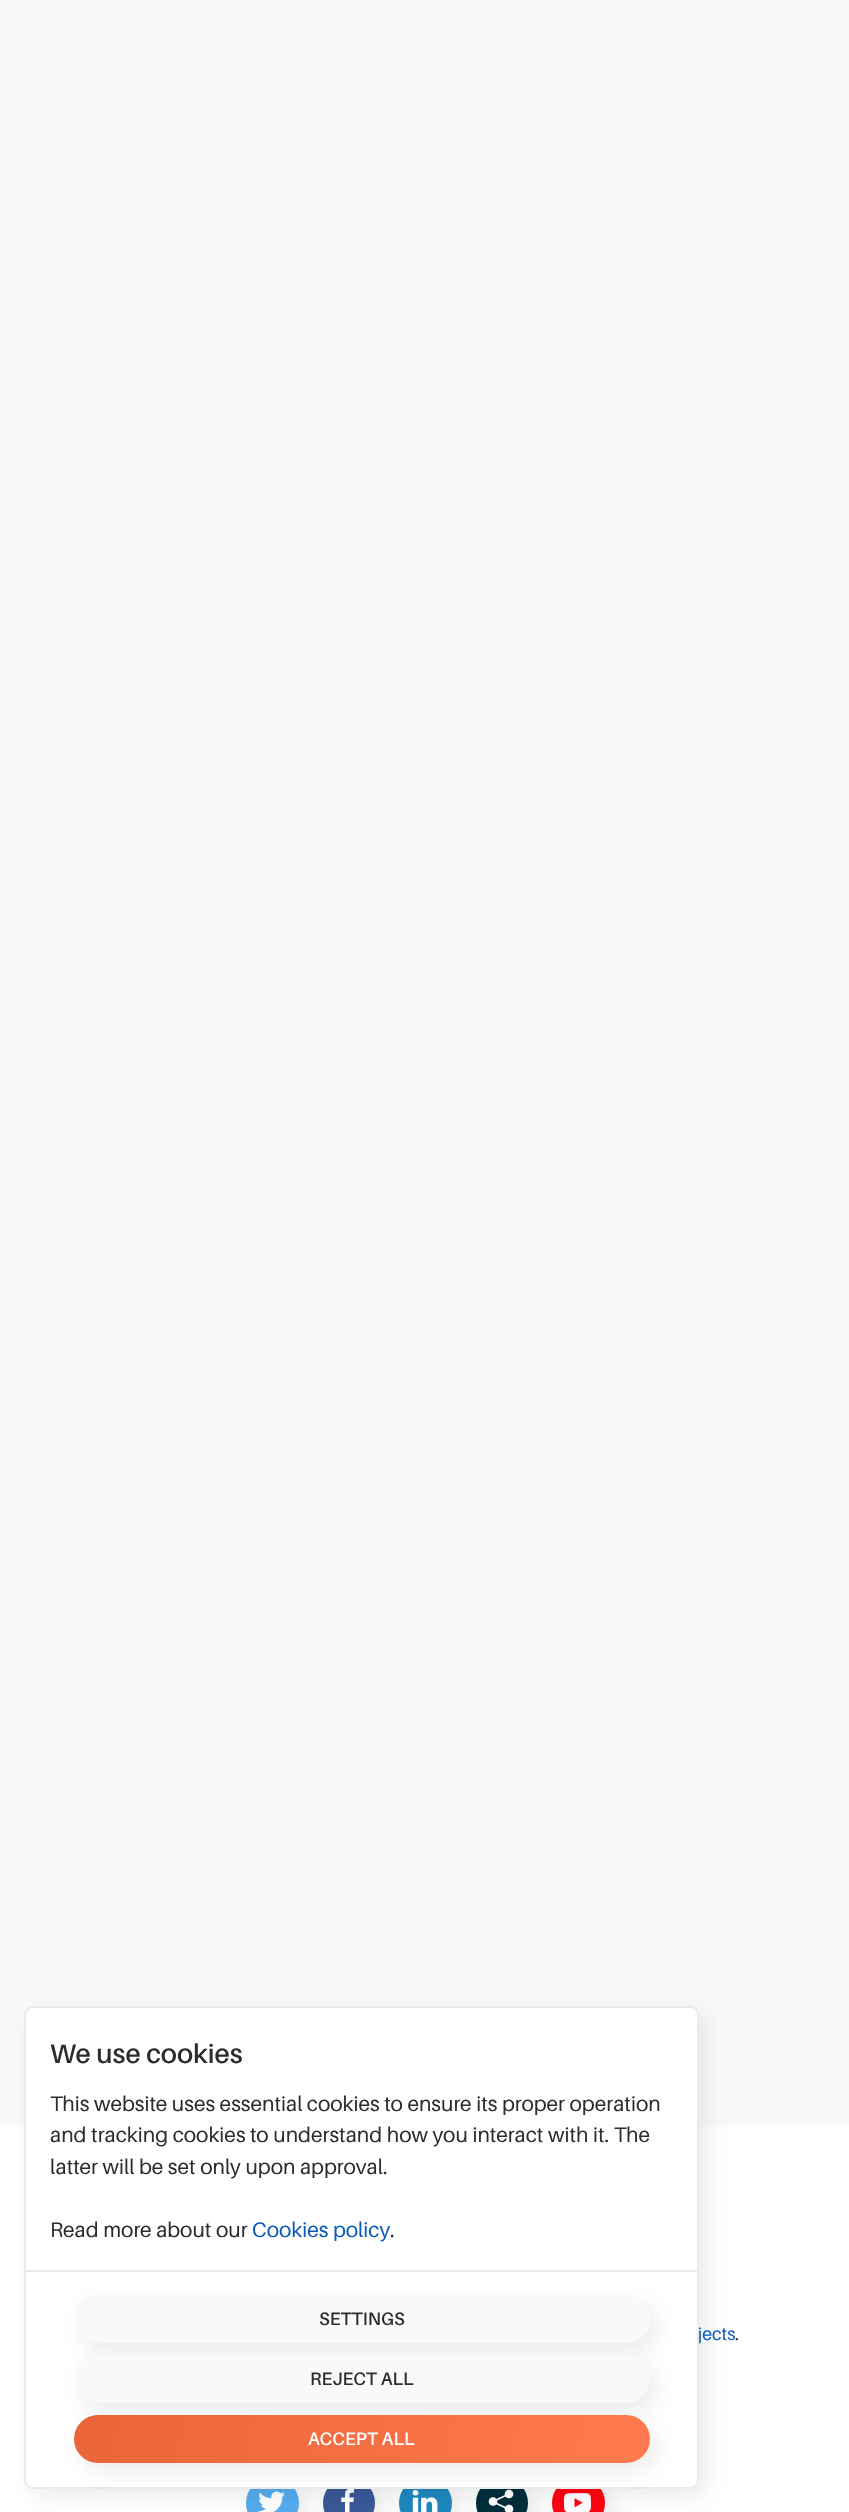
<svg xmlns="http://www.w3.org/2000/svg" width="849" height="2512">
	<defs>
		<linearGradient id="g1" gradientUnits="userSpaceOnUse" x1="85" y1="2370" x2="638" y2="2508"><stop offset="0" stop-color="#E96439" /><stop offset="1" stop-color="#FF7A4E" /></linearGradient>
	</defs>
	<rect width="100%" height="100%" fill="#F9F9F9" />
	<rect x="0" y="2127" width="849" height="385" fill="#FFFFFF" />
	<rect x="254" y="2484" width="52" height="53" rx="26" fill="#000000" fill-opacity="0.08" filter="blur(11px)" />
	<rect x="246" y="2477" width="53" height="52" rx="26" fill="#55ACEE" />
	<image x="258" y="2491" width="27" height="21" href="assets/img1.png" />
	<rect x="330" y="2484" width="53" height="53" rx="26.5" fill="#000000" fill-opacity="0.08" filter="blur(11px)" />
	<circle cx="349" cy="2503" r="26" fill="#3A5998" />
	<image x="341" y="2489" width="13" height="23" href="assets/img2.png" />
	<rect x="407" y="2484" width="52" height="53" rx="26" fill="#000000" fill-opacity="0.08" filter="blur(11px)" />
	<rect x="399" y="2477" width="53" height="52" rx="26" fill="#1F88BE" />
	<image x="412" y="2490" width="26" height="22" href="assets/img3.png" />
	<rect x="483" y="2484" width="53" height="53" rx="26.5" fill="#000000" fill-opacity="0.08" filter="blur(11px)" />
	<circle cx="502" cy="2503" r="26" fill="#002E3C" />
	<image x="488" y="2489" width="26" height="23" href="assets/img4.png" />
	<rect x="560" y="2484" width="52" height="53" rx="26" fill="#000000" fill-opacity="0.08" filter="blur(11px)" />
	<rect x="552" y="2477" width="53" height="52" rx="26" fill="#FF0312" />
	<image x="564" y="2493" width="27" height="19" href="assets/img5.png" />
	<rect x="32" y="2013" width="675" height="483" rx="9" fill="#000000" fill-opacity="0.08" filter="blur(11px)" />
	<text x="698" y="2340" font-family="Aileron" font-size="18" fill="#095ABA">jects</text>
	<rect x="25" y="2007" width="673" height="481" rx="8" fill="#FFFFFF" stroke="#EAEAEA" stroke-width="2" />
	<text x="50" y="2063" font-family="Aileron" font-size="27" font-weight="600" fill="#2C2C2C">We use cookies</text>
	<g font-family="Aileron" font-size="21" fill="#2C2C2C">
		<text x="50" y="2111">This website uses essential cookies to ensure its proper operation</text>
		<text x="50" y="2142">and tracking cookies to understand how you interact with it. The</text>
		<text x="50" y="2174">latter will be set only upon approval.</text>
		<text x="50" y="2237">Read more about our</text>
	</g>
	<text x="252" y="2237" font-family="Aileron" font-size="21" fill="#095ABA">Cookies policy</text>
	<text x="390" y="2237" font-family="Aileron" font-size="21" fill="#2C2C2C">.</text>
	<rect x="26" y="2270" width="672" height="2" fill="#EAEAEA" />
	<rect x="81" y="2303" width="576" height="48" rx="24" fill="#000000" fill-opacity="0.08" filter="blur(11px)" />
	<rect x="74" y="2295" width="576" height="48" rx="24" fill="#F9F9F9" />
	<text x="319" y="2325" font-family="Aileron" font-size="18" font-weight="600" fill="#2C2C2C">SETTINGS</text>
	<rect x="81" y="2363" width="576" height="48" rx="24" fill="#000000" fill-opacity="0.08" filter="blur(11px)" />
	<rect x="74" y="2355" width="576" height="48" rx="24" fill="#F9F9F9" />
	<text x="310" y="2385" font-family="Aileron" font-size="18" font-weight="600" fill="#2C2C2C">REJECT ALL</text>
	<rect x="81" y="2423" width="576" height="48" rx="24" fill="#000000" fill-opacity="0.08" filter="blur(11px)" />
	<rect x="74" y="2415" width="576" height="48" rx="24" fill="url(#g1)" />
	<text x="308" y="2445" font-family="Aileron" font-size="18" font-weight="600" fill="#FFFFFF">ACCEPT ALL</text>
	<text x="735" y="2340" font-family="Aileron" font-size="18" fill="#2C2C2C">.</text>
</svg>
